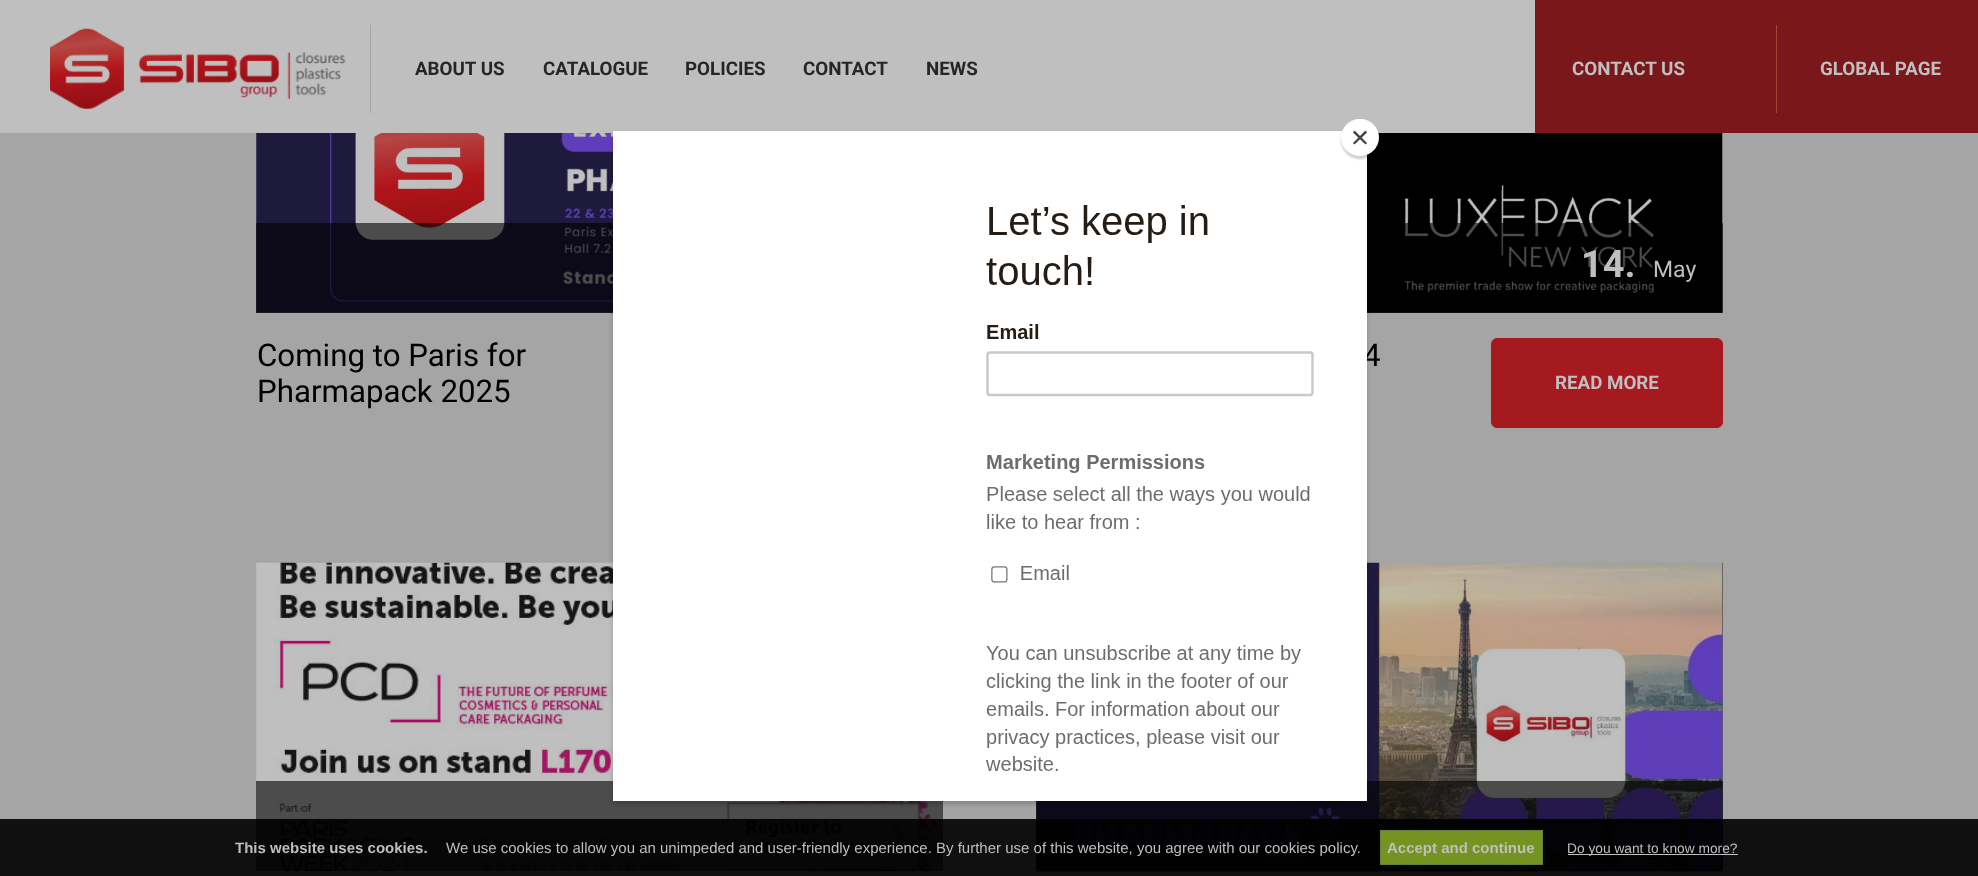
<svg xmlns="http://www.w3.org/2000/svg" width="1978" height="876">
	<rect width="100%" height="100%" fill="#A5A5A6" />
	<rect x="0" y="0" width="1535" height="133" fill="#BFBFBF" />
	<rect x="370" y="25" width="1" height="88" fill="#A5A5A6" />
	<image x="50" y="28" width="296" height="81" href="assets/img1.png" />
	<g font-family="Roboto" font-size="18.75" font-weight="700" fill="#262626">
		<text x="415" y="75">ABOUT US</text>
		<text x="543" y="75">CATALOGUE</text>
		<text x="685" y="75">POLICIES</text>
		<text x="803" y="75">CONTACT</text>
		<text x="926" y="75">NEWS</text>
	</g>
	<rect x="1535" y="0" width="443" height="133" fill="#79171A" />
	<rect x="1776" y="25" width="1" height="88" fill="#A84433" />
	<g font-family="Roboto" font-size="18.75" font-weight="700" fill="#BFBFBF">
		<text x="1572" y="75">CONTACT US</text>
		<text x="1820" y="75">GLOBAL PAGE</text>
	</g>
	<image x="256" y="133" width="357" height="180" href="assets/img3.png" />
	<rect x="256" y="223" width="357" height="90" fill="#000000" fill-opacity="0.6" />
	<image x="1367" y="133" width="356" height="180" href="assets/img4.png" />
	<rect x="1367" y="223" width="356" height="90" fill="#000000" fill-opacity="0.6" />
	<image x="256" y="562" width="687" height="310" href="assets/img5.png" />
	<rect x="256" y="781" width="687" height="90" fill="#000000" fill-opacity="0.6" />
	<image x="1036" y="562" width="687" height="310" href="assets/img6.png" />
	<rect x="1036" y="781" width="687" height="90" fill="#000000" fill-opacity="0.6" />
	<rect x="613" y="134" width="753" height="670" fill="#000000" fill-opacity="0.2" filter="blur(2.5px)" />
	<text x="1363" y="366" font-family="Roboto" font-size="31.25" fill="#000000">4</text>
	<image x="613" y="131" width="754" height="670" href="assets/img2.png" />
	<rect x="1341" y="121" width="38" height="38" rx="19" fill="#000000" fill-opacity="0.2" filter="blur(1px)" />
	<rect x="1341" y="119" width="38" height="37" rx="18.5" fill="#FFFFFF" />
	<path d="M1365.5 130.5L1367 132.5L1354.5 144.5L1353 143Z" fill="#414141" />
	<path d="M1353 132.5L1354.5 130.5L1367 143L1365.5 144.5Z" fill="#414141" />
	<g font-family="Roboto" font-size="31.25" fill="#000000">
		<text x="257" y="366">Coming to Paris for</text>
		<text x="257" y="402">Pharmapack 2025</text>
	</g>
	<text x="1581" y="277" font-family="Roboto" font-size="38" font-weight="700" fill="#BFBFBF">14.</text>
	<text x="1653" y="277" font-family="Roboto" font-size="23" fill="#BFBFBF">May</text>
	<rect x="1491.5" y="338.5" width="231" height="89" rx="5.5" fill="#A41A1F" stroke="#A41A1F" />
	<text x="1555" y="389" font-family="Roboto" font-size="18.75" font-weight="700" fill="#BFBFBF">READ MORE</text>
	<rect x="0" y="819" width="1978" height="57" fill="#000000" fill-opacity="0.9" />
	<text x="235" y="853" font-family="Liberation Sans" font-size="15" font-weight="700" fill="#BFBFBF">This website uses cookies.</text>
	<text x="446" y="853" font-family="Liberation Sans" font-size="15" fill="#BFBFBF">We use cookies to allow you an unimpeded and user-friendly experience. By further use of this website, you agree with our cookies policy.</text>
	<rect x="1380.5" y="830.5" width="162" height="34" fill="#749320" stroke="#658038" />
	<text x="1387" y="853" font-family="Liberation Sans" font-size="15" font-weight="700" fill="#BFBFBF">Accept and continue</text>
	<rect x="1568" y="854" width="170" height="1" fill="#BFBFBF" />
	<text x="1567" y="853" font-family="Liberation Sans" font-size="13.75" fill="#BFBFBF">Do you want to know more?</text>
</svg>
